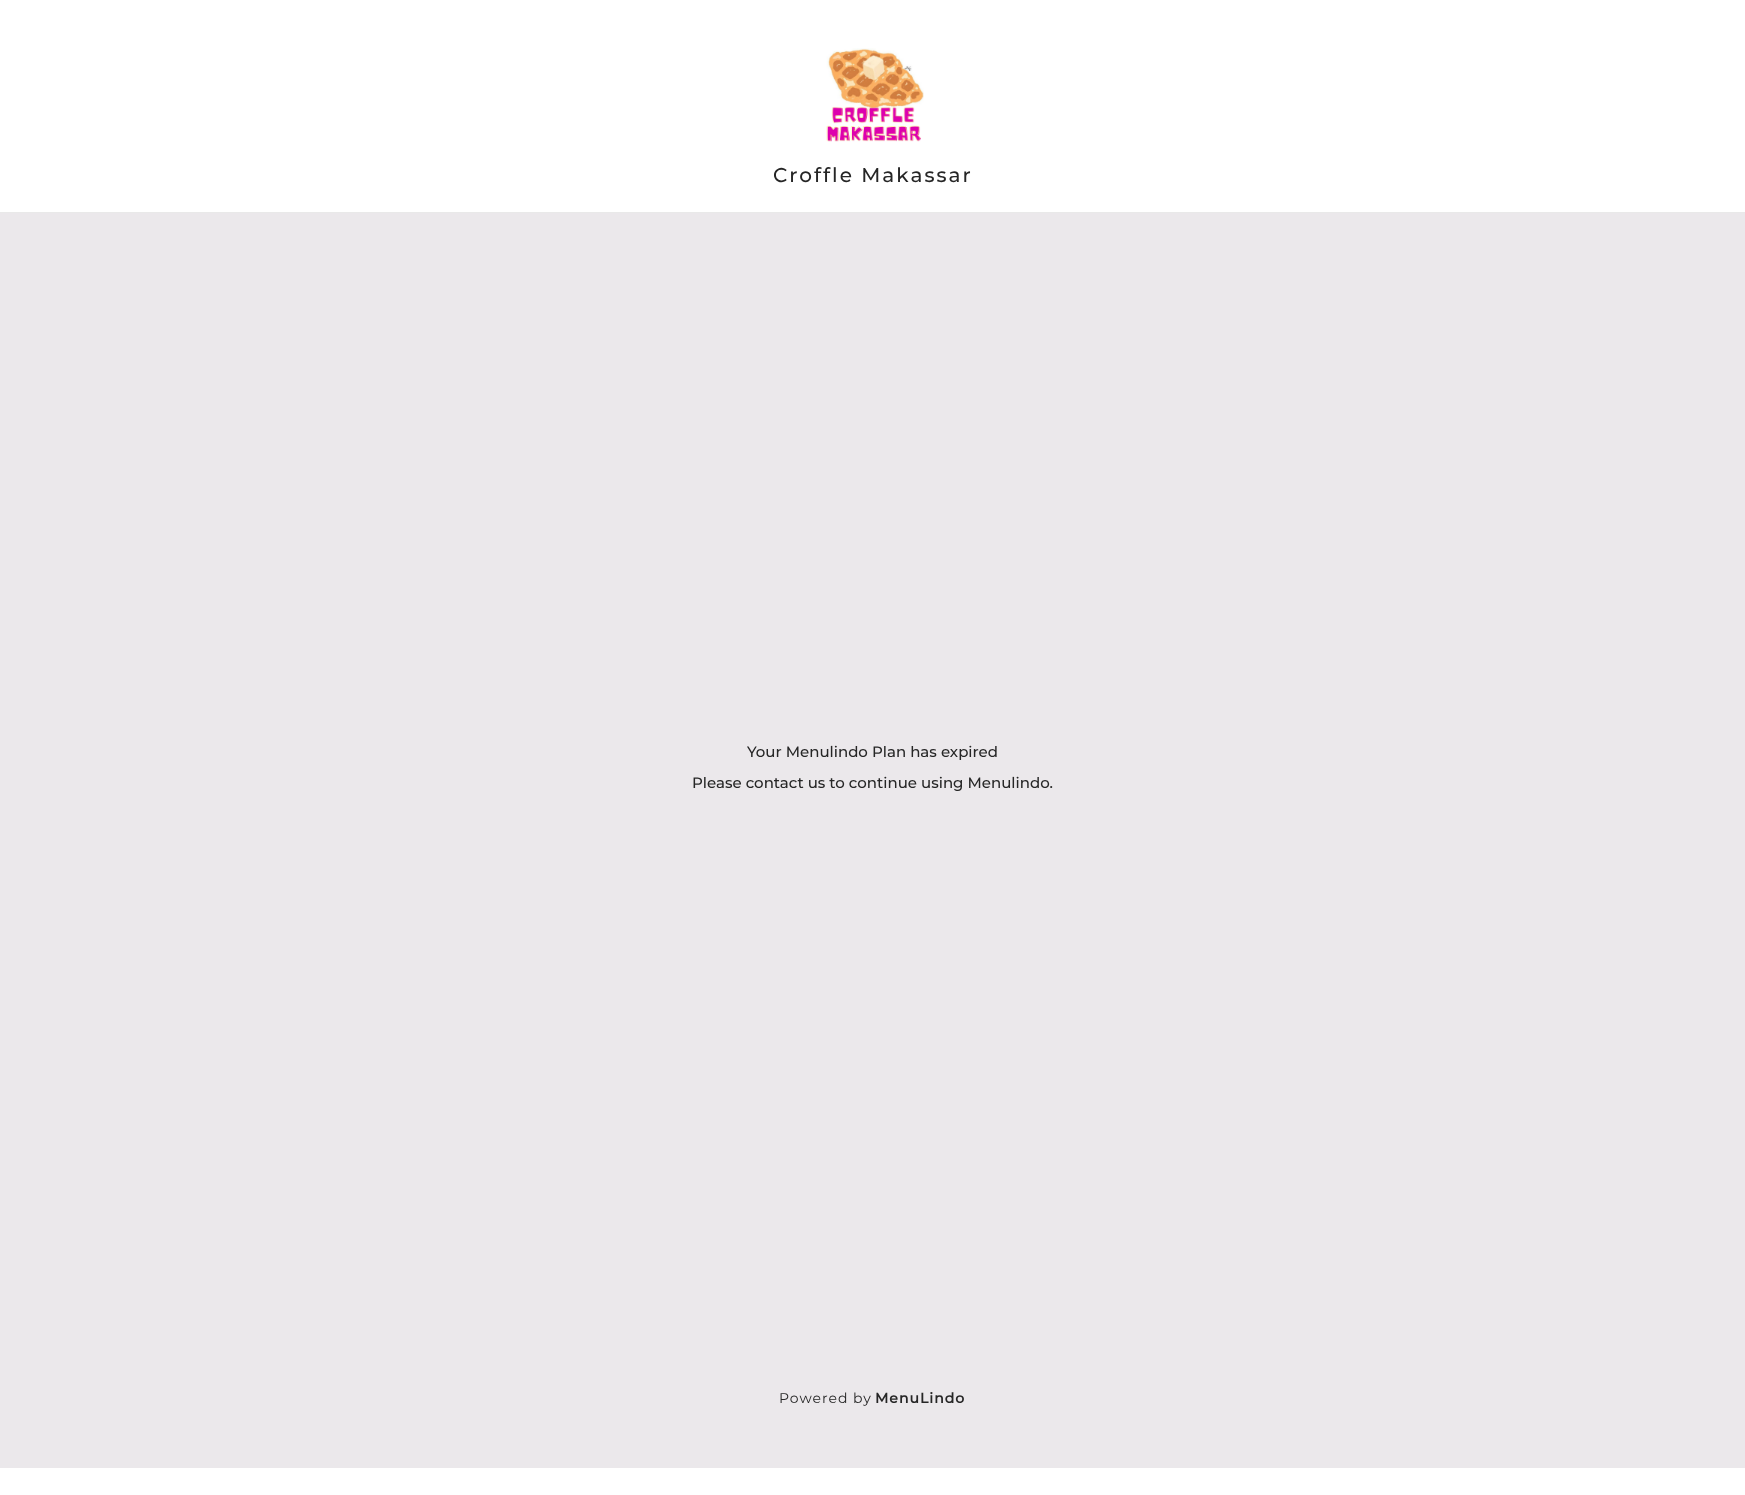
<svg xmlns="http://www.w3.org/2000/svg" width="1745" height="1495">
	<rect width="100%" height="100%" fill="#FFFFFF" />
	<rect x="0" y="213" width="1745" height="1255" fill="#EBE8EB" />
	<rect x="0" y="212" width="1745" height="1" fill="#E9E9E9" />
	<image x="826" y="48" width="98" height="94" href="assets/img1.png" />
	<text x="773" y="182" font-family="Montserrat" font-size="20" font-weight="500" letter-spacing="2" fill="#262626">Croffle Makassar</text>
	<g font-family="Montserrat" font-size="15" font-weight="500" fill="#262626">
		<text x="747" y="757">Your Menulindo Plan has expired</text>
		<text x="692" y="788">Please contact us to continue using Menulindo.</text>
	</g>
	<text x="779" y="1403" font-family="Montserrat" font-size="14" letter-spacing="1" fill="#262626">Powered by</text>
	<text x="875" y="1403" font-family="Montserrat" font-size="14" font-weight="700" letter-spacing="1" fill="#262626">MenuLindo</text>
</svg>
